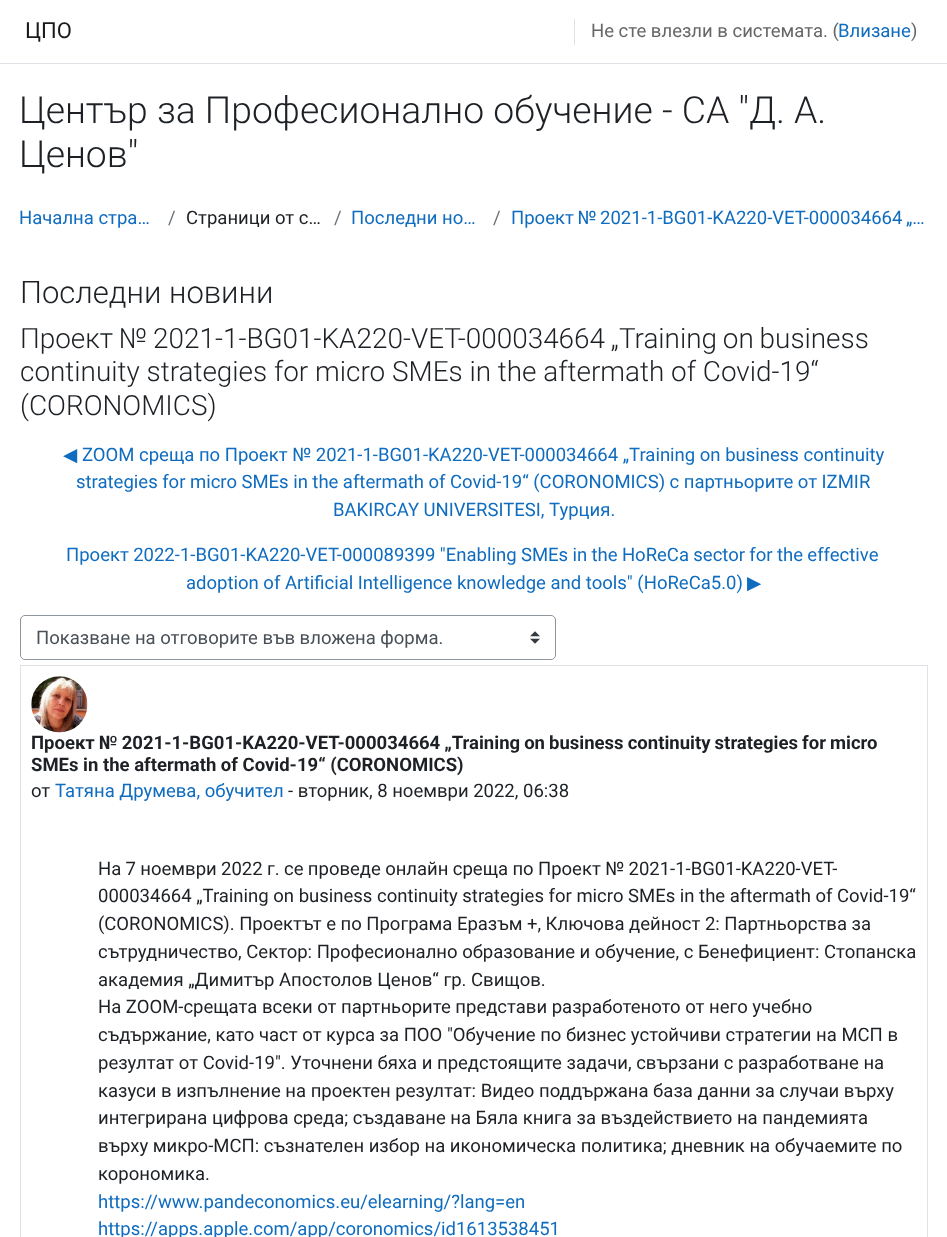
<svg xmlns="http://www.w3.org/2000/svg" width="947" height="1237">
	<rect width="100%" height="100%" fill="#FFFFFF" />
	<rect x="0" y="63" width="947" height="1" fill="#DEE2E6" />
	<text x="25" y="38" font-family="Roboto" font-size="22" fill="#1A1A1A">ЦПО</text>
	<rect x="574" y="19" width="1" height="26" fill="#DEE2E6" />
	<text x="591" y="37" font-family="Roboto" font-size="18.5" fill="#666666">Не сте влезли в системата. (</text>
	<text x="838" y="37" font-family="Roboto" font-size="18.5" fill="#0F6CBF">Влизане</text>
	<text x="911" y="37" font-family="Roboto" font-size="18.5" fill="#666666">)</text>
	<g font-family="Roboto" font-size="37.3" font-weight="300" fill="#1D2125">
		<text x="19" y="123">Център за Професионално обучение - СА "Д. А.</text>
		<text x="19" y="167">Ценов"</text>
	</g>
	<text x="19" y="224" font-family="Roboto" font-size="18.5" fill="#0F6CBF">Начална стра…</text>
	<text x="168" y="224" font-family="Roboto" font-size="18.5" fill="#6A737B">/</text>
	<text x="186" y="224" font-family="Roboto" font-size="18.5" fill="#1D2125">Страници от с…</text>
	<text x="334" y="224" font-family="Roboto" font-size="18.5" fill="#6A737B">/</text>
	<text x="351" y="224" font-family="Roboto" font-size="18.5" fill="#0F6CBF">Последни но…</text>
	<text x="493" y="224" font-family="Roboto" font-size="18.5" fill="#6A737B">/</text>
	<text x="511" y="224" word-spacing="-1" font-family="Roboto" font-size="18.5" fill="#0F6CBF">Проект № 2021-1-BG01-KA220-VET-000034664 „…</text>
	<text x="20" y="303" font-family="Roboto" font-size="31" font-weight="300" fill="#1D2125">Последни новини</text>
	<g font-family="Roboto" font-size="27.9" font-weight="300" fill="#1D2125">
		<text x="20" y="348" word-spacing="-1">Проект № 2021-1-BG01-KA220-VET-000034664 „Training on business</text>
		<text x="20" y="381">continuity strategies for micro SMEs in the aftermath of Covid-19“</text>
		<text x="20" y="415">(CORONOMICS)</text>
	</g>
	<text x="63" y="461" font-family="DejaVu Sans" font-size="18.5" fill="#0F6CBF">◀︎</text>
	<g font-family="Roboto" font-size="18.5" fill="#0F6CBF">
		<text x="82" y="461">ZOOM среща по Проект № 2021-1-BG01-KA220-VET-000034664 „Training on business continuity</text>
		<text x="76" y="488" word-spacing="-0.1">strategies for micro SMEs in the aftermath of Covid-19“ (CORONOMICS) с партньорите от IZMIR</text>
		<text x="333" y="516">BAKIRCAY UNIVERSITESI, Турция.</text>
		<text x="66" y="561" word-spacing="-0.25">Проект 2022-1-BG01-KA220-VET-000089399 "Enabling SMEs in the HoReCa sector for the effective</text>
		<text x="186" y="589">adoption of Artificial Intelligence knowledge and tools" (HoReCa5.0)</text>
	</g>
	<text x="747" y="589" font-family="DejaVu Sans" font-size="18.5" fill="#0F6CBF">▶︎</text>
	<image x="530" y="631" width="10" height="13" href="assets/img1.png" />
	<rect x="20.5" y="615.5" width="535" height="44" rx="4.5" fill="none" stroke="#8F959E" />
	<text x="36" y="644" font-family="Roboto" font-size="18.5" fill="#495057">Показване на отговорите във вложена форма.</text>
	<rect x="20.5" y="665.5" width="907" height="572" fill="none" stroke="#DEE2E6" />
	<image x="31" y="676" width="57" height="57" href="assets/img2.png" />
	<g font-family="Roboto" font-size="18.5" font-weight="700" fill="#1D2125">
		<text x="31" y="749" word-spacing="-0.5">Проект № 2021-1-BG01-KA220-VET-000034664 „Training on business continuity strategies for micro</text>
		<text x="31" y="771">SMEs in the aftermath of Covid-19“ (CORONOMICS)</text>
	</g>
	<text x="31" y="797" font-family="Roboto" font-size="18.5" fill="#1D2125">от</text>
	<text x="55" y="797" font-family="Roboto" font-size="18.5" fill="#0F6CBF">Татяна Друмева, обучител</text>
	<g font-family="Roboto" font-size="18.5" fill="#1D2125">
		<text x="288" y="797">- вторник, 8 ноември 2022, 06:38</text>
		<text x="98" y="875" word-spacing="-0.25">На 7 ноември 2022 г. се проведе онлайн среща по Проект № 2021-1-BG01-KA220-VET-</text>
		<text x="98" y="902">000034664 „Training on business continuity strategies for micro SMEs in the aftermath of Covid-19“</text>
		<text x="98" y="930" word-spacing="-0.1">(CORONOMICS). Проектът е по Програма Еразъм +, Ключова дейност 2: Партньорства за</text>
		<text x="98" y="958">сътрудничество, Сектор: Професионално образование и обучение, с Бенефициент: Стопанска</text>
		<text x="98" y="986">академия „Димитър Апостолов Ценов“ гр. Свищов.</text>
		<text x="98" y="1013">На ZOOM-срещата всеки от партньорите представи разработеното от него учебно</text>
		<text x="98" y="1041">съдържание, като част от курса за ПОО "Обучение по бизнес устойчиви стратегии на МСП в</text>
		<text x="98" y="1069">резултат от Covid-19". Уточнени бяха и предстоящите задачи, свързани с разработване на</text>
		<text x="98" y="1097">казуси в изпълнение на проектен резултат: Видео поддържана база данни за случаи върху</text>
		<text x="98" y="1124">интегрирана цифрова среда; създаване на Бяла книга за въздействието на пандемията</text>
		<text x="98" y="1152">върху микро-МСП: съзнателен избор на икономическа политика; дневник на обучаемите по</text>
		<text x="98" y="1180">корономика.</text>
	</g>
	<g font-family="Roboto" font-size="18.5" fill="#0F6CBF">
		<text x="98" y="1208">https://www.pandeconomics.eu/elearning/?lang=en</text>
		<text x="98" y="1235">https://apps.apple.com/app/coronomics/id1613538451</text>
	</g>
</svg>
